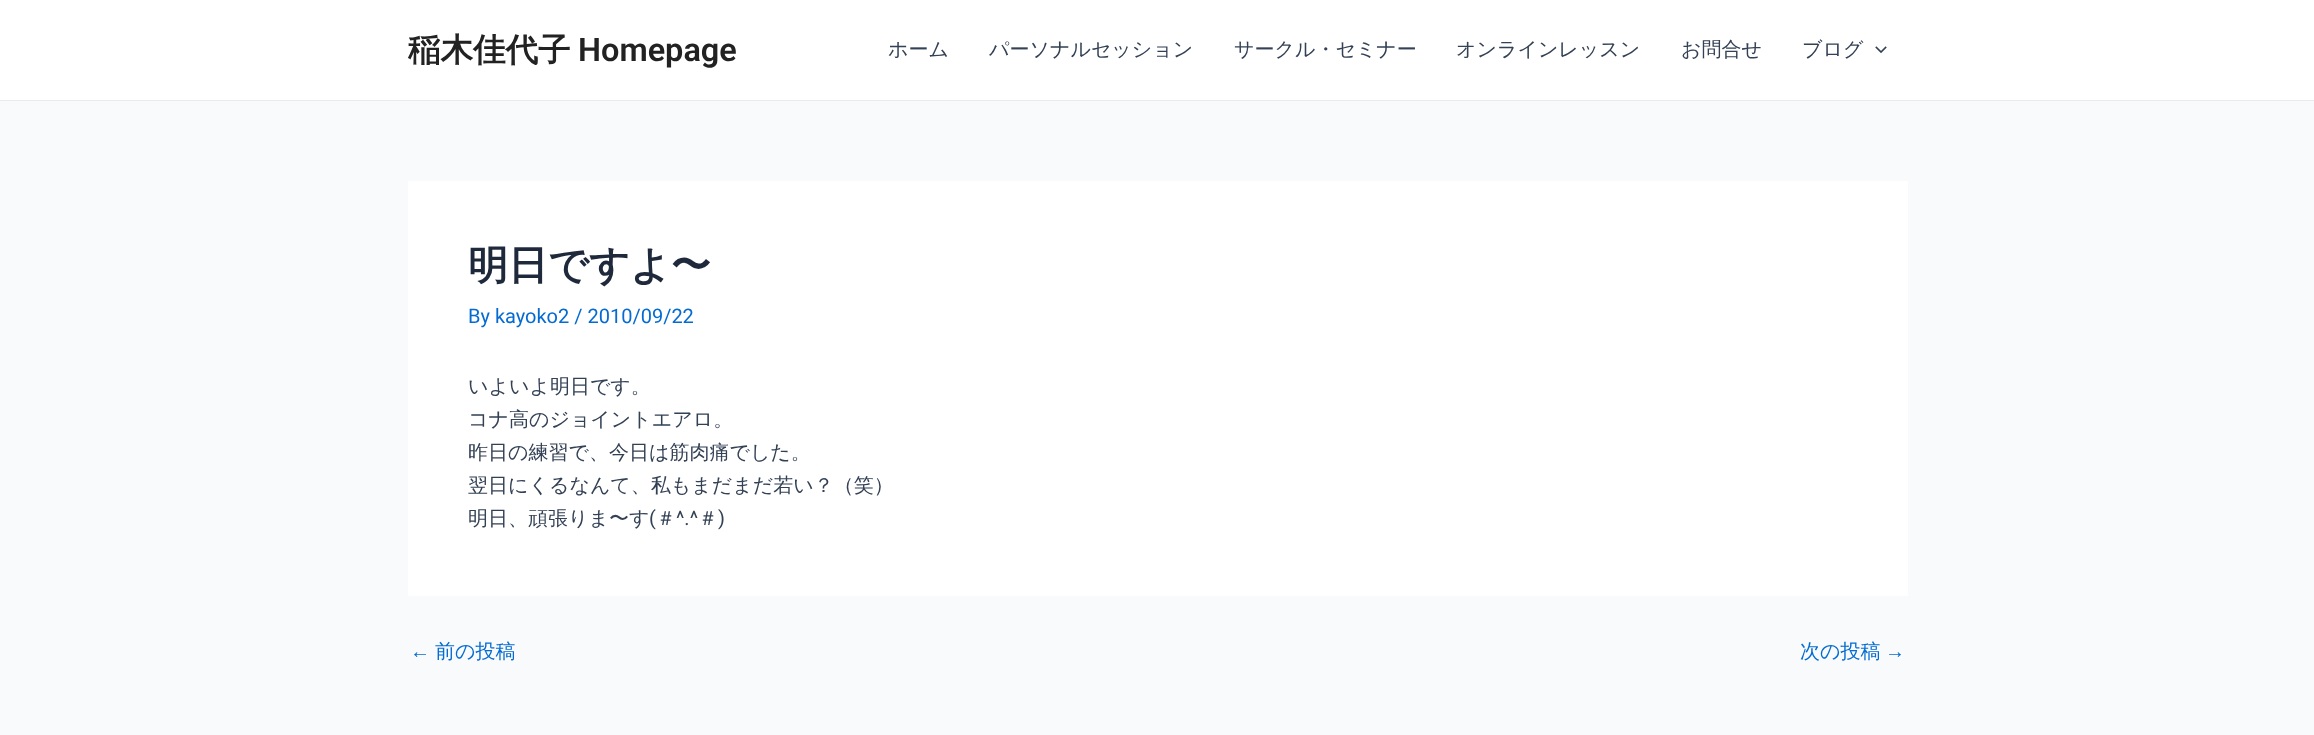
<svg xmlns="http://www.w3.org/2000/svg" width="2314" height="735">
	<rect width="100%" height="100%" fill="#F9FAFB" />
	<rect x="0" y="0" width="2314" height="100" fill="#FFFFFF" />
	<rect x="0" y="100" width="2314" height="1" fill="#EAEAEA" />
	<text x="408" y="61" font-family="WenQuanYi Zen Hei" font-size="32.5" font-weight="700" fill="#222222">稲木佳代子</text>
	<text x="578" y="61" font-family="Roboto" font-size="32.5" font-weight="600" fill="#222222">Homepage</text>
	<g font-family="WenQuanYi Zen Hei" font-size="20" font-weight="500" fill="#334155">
		<text x="888" y="56">ホーム</text>
		<text x="989" y="56">パーソナルセッション</text>
		<text x="1234" y="56">サークル・セミナー</text>
		<text x="1456" y="56">オンラインレッスン</text>
		<text x="1681" y="56">お問合せ</text>
		<text x="1802" y="56">ブログ</text>
	</g>
	<image x="1875" y="46" width="12" height="8" href="assets/img1.png" />
	<rect x="408" y="181" width="1500" height="415" fill="#FFFFFF" />
	<text x="468" y="279" font-family="WenQuanYi Zen Hei" font-size="40" font-weight="700" fill="#1E293B">明日ですよ〜</text>
	<text x="468" y="323" font-family="Roboto" font-size="20" fill="#046BD2">By kayoko2 / 2010/09/22</text>
	<g font-family="WenQuanYi Zen Hei" font-size="20" font-weight="500" fill="#334155">
		<text x="468" y="393">いよいよ明日です。</text>
		<text x="468" y="426">コナ高のジョイントエアロ。</text>
		<text x="468" y="459">昨日の練習で、今日は筋肉痛でした。</text>
		<text x="468" y="492">翌日にくるなんて、私もまだまだ若い？（笑）</text>
		<text x="468" y="525">明日、頑張りま〜す</text>
	</g>
	<text x="649" y="525" font-family="Roboto" font-size="20" fill="#334155">(</text>
	<text x="656" y="525" font-family="WenQuanYi Zen Hei" font-size="20" font-weight="500" fill="#334155">＃</text>
	<text x="676" y="525" font-family="Roboto" font-size="20" fill="#334155">^.^</text>
	<text x="698" y="525" font-family="WenQuanYi Zen Hei" font-size="20" font-weight="500" fill="#334155">＃</text>
	<text x="718" y="525" font-family="Roboto" font-size="20" fill="#334155">)</text>
	<text x="410" y="658" font-family="Liberation Sans" font-size="20" fill="#046BD2">←</text>
	<g font-family="WenQuanYi Zen Hei" font-size="20" font-weight="500" fill="#046BD2">
		<text x="435" y="658">前の投稿</text>
		<text x="1800" y="658">次の投稿</text>
	</g>
	<text x="1885" y="658" font-family="Liberation Sans" font-size="20" fill="#046BD2">→</text>
</svg>
